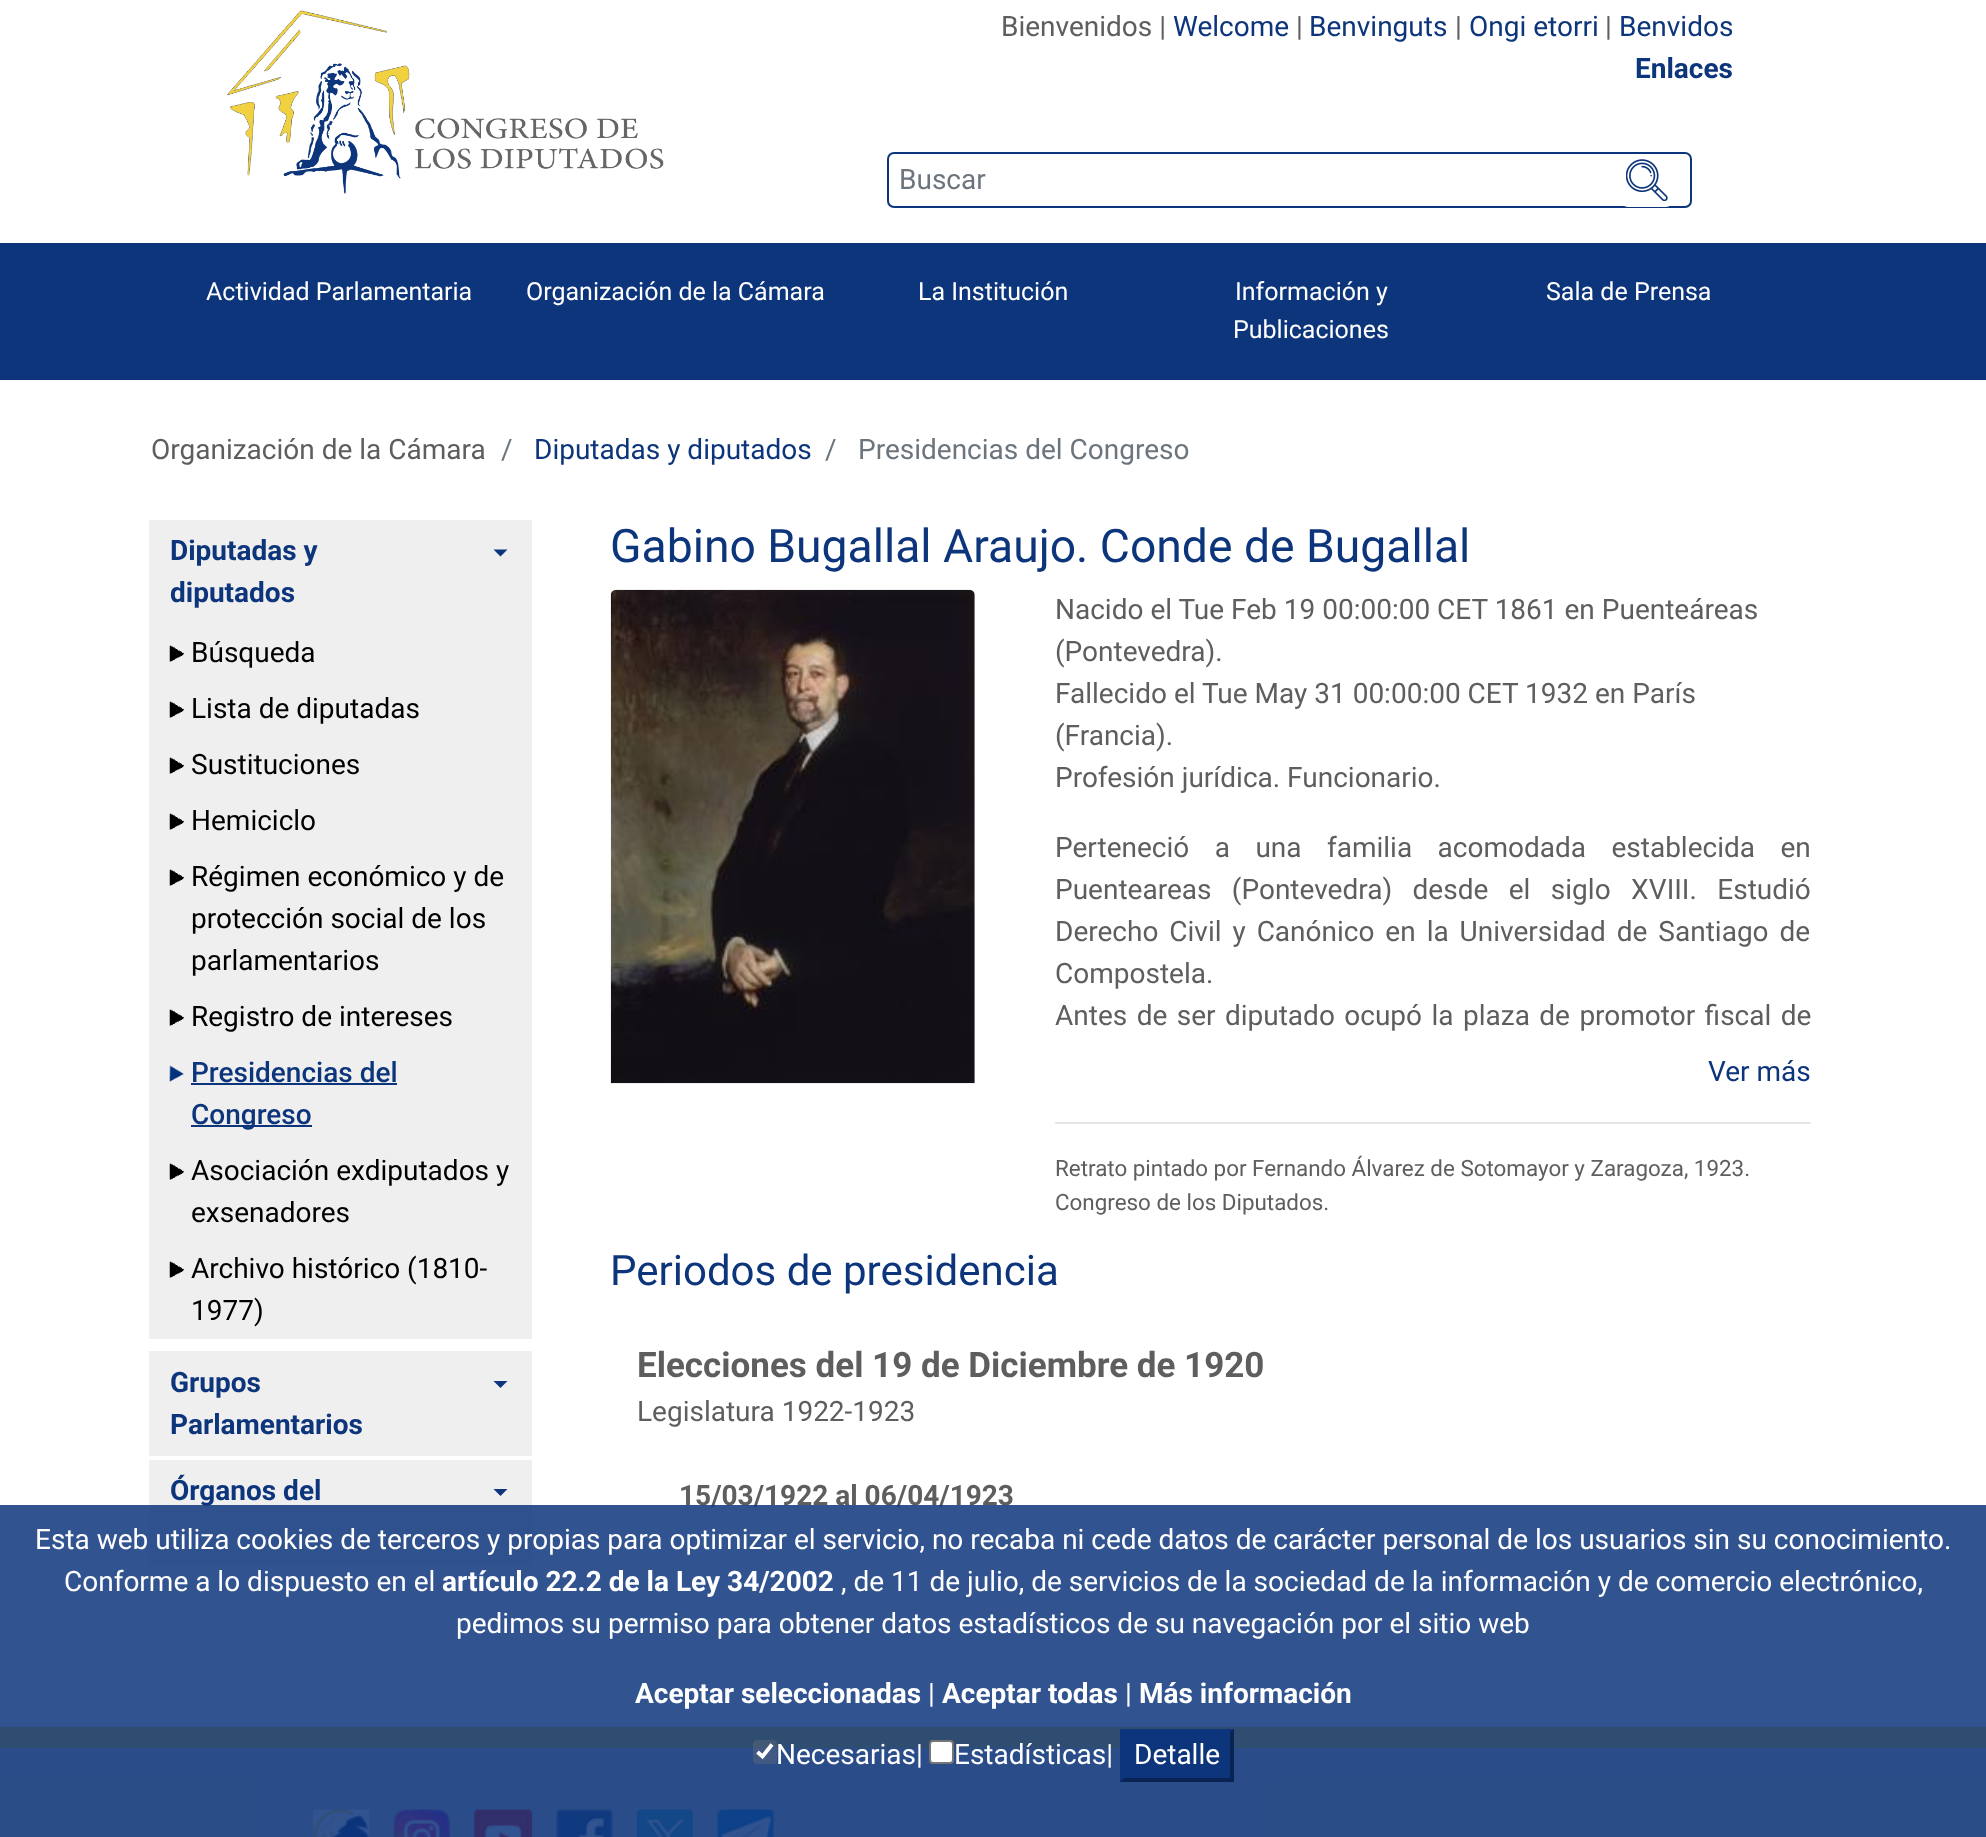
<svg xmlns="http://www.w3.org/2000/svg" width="1986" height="1837">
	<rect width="100%" height="100%" fill="#FFFFFF" />
	<image x="227" y="10" width="437" height="184" href="assets/img1.png" />
	<text x="1001" y="36" font-family="Roboto" font-size="28" fill="#5E5E5E">Bienvenidos |</text>
	<text x="1173" y="36" font-family="Roboto" font-size="28" fill="#0D357B">Welcome</text>
	<text x="1296" y="36" font-family="Roboto" font-size="28" fill="#5E5E5E">|</text>
	<text x="1309" y="36" font-family="Roboto" font-size="28" fill="#0D357B">Benvinguts</text>
	<text x="1455" y="36" font-family="Roboto" font-size="28" fill="#5E5E5E">|</text>
	<text x="1469" y="36" font-family="Roboto" font-size="28" fill="#0D357B">Ongi etorri</text>
	<text x="1605" y="36" font-family="Roboto" font-size="28" fill="#5E5E5E">|</text>
	<text x="1619" y="36" font-family="Roboto" font-size="28" fill="#0D357B">Benvidos</text>
	<text x="1635" y="78" font-family="Roboto" font-size="28" font-weight="700" fill="#0D357B">Enlaces</text>
	<rect x="888" y="153" width="803" height="54" rx="6" fill="none" stroke="#0D357B" stroke-width="2" />
	<text x="899" y="189" font-family="Roboto" font-size="28" fill="#6C757D">Buscar</text>
	<rect x="1621" y="154" width="52" height="53" rx="7" fill="#FFFFFF" />
	<image x="1626" y="159" width="42" height="42" href="assets/img2.png" />
	<rect x="0" y="243" width="1986" height="137" fill="#0D357B" />
	<g font-family="Roboto" font-size="25" fill="#FFFFFF">
		<text x="206" y="300">Actividad Parlamentaria</text>
		<text x="526" y="300">Organización de la Cámara</text>
		<text x="918" y="300">La Institución</text>
		<text x="1235" y="300">Información y</text>
		<text x="1233" y="338">Publicaciones</text>
		<text x="1546" y="300">Sala de Prensa</text>
	</g>
	<text x="151" y="459" font-family="Roboto" font-size="28" fill="#5E5E5E">Organización de la Cámara</text>
	<text x="501" y="459" font-family="Roboto" font-size="28" fill="#6C757D">/</text>
	<text x="534" y="459" font-family="Roboto" font-size="28" fill="#0D357B">Diputadas y diputados</text>
	<g font-family="Roboto" font-size="28" fill="#6C757D">
		<text x="825" y="459">/</text>
		<text x="858" y="459">Presidencias del Congreso</text>
	</g>
	<rect x="149" y="520" width="383" height="819" fill="#EFEFEF" />
	<g font-family="Roboto" font-size="28" font-weight="700" fill="#0D357B">
		<text x="170" y="560">Diputadas y</text>
		<text x="170" y="602">diputados</text>
	</g>
	<path d="M493.5 549.5H507.5L500.5 556.5Z" fill="#0D357B" />
	<image x="169" y="645" width="15" height="17" href="assets/img3.png" />
	<text x="191" y="662" font-family="Roboto" font-size="28" fill="#000000">Búsqueda</text>
	<image x="169" y="701" width="15" height="17" href="assets/img3.png" />
	<text x="191" y="718" font-family="Roboto" font-size="28" fill="#000000">Lista de diputadas</text>
	<image x="169" y="757" width="15" height="17" href="assets/img3.png" />
	<text x="191" y="774" font-family="Roboto" font-size="28" fill="#000000">Sustituciones</text>
	<image x="169" y="813" width="15" height="17" href="assets/img3.png" />
	<text x="191" y="830" font-family="Roboto" font-size="28" fill="#000000">Hemiciclo</text>
	<image x="169" y="869" width="15" height="17" href="assets/img3.png" />
	<g font-family="Roboto" font-size="28" fill="#000000">
		<text x="191" y="886">Régimen económico y de</text>
		<text x="191" y="928">protección social de los</text>
		<text x="191" y="970">parlamentarios</text>
	</g>
	<image x="169" y="1009" width="15" height="17" href="assets/img3.png" />
	<text x="191" y="1026" font-family="Roboto" font-size="28" fill="#000000">Registro de intereses</text>
	<image x="169" y="1065" width="15" height="17" href="assets/img4.png" />
	<text x="191" y="1082" font-family="Roboto" font-size="28" font-weight="500" fill="#0D357B">Presidencias del</text>
	<rect x="191" y="1083" width="206" height="2" fill="#0D357B" />
	<rect x="191" y="1125" width="121" height="2" fill="#0D357B" />
	<text x="191" y="1124" font-family="Roboto" font-size="28" font-weight="500" fill="#0D357B">Congreso</text>
	<image x="169" y="1163" width="15" height="17" href="assets/img3.png" />
	<g font-family="Roboto" font-size="28" fill="#000000">
		<text x="191" y="1180">Asociación exdiputados y</text>
		<text x="191" y="1222">exsenadores</text>
	</g>
	<image x="169" y="1261" width="15" height="17" href="assets/img3.png" />
	<g font-family="Roboto" font-size="28" fill="#000000">
		<text x="191" y="1278">Archivo histórico (1810-</text>
		<text x="191" y="1320">1977)</text>
	</g>
	<rect x="149" y="1351" width="383" height="105" fill="#EFEFEF" />
	<g font-family="Roboto" font-size="28" font-weight="700" fill="#0D357B">
		<text x="170" y="1392">Grupos</text>
		<text x="170" y="1434">Parlamentarios</text>
	</g>
	<path d="M493.5 1381H507.5L500.5 1388Z" fill="#0D357B" />
	<rect x="149" y="1460" width="383" height="105" fill="#EFEFEF" />
	<text x="170" y="1500" font-family="Roboto" font-size="28" font-weight="700" fill="#0D357B">Órganos del</text>
	<path d="M493.5 1489H507.5L500.5 1496Z" fill="#0D357B" />
	<text x="610" y="562" font-family="Roboto" font-size="46.25" fill="#0D357B">Gabino Bugallal Araujo. Conde de Bugallal</text>
	<image x="610" y="589" width="365" height="495" href="assets/img5.png" />
	<g font-family="Roboto" font-size="28" fill="#5E5E5E">
		<text x="1055" y="619">Nacido el Tue Feb 19 00:00:00 CET 1861 en Puenteáreas</text>
		<text x="1055" y="661">(Pontevedra).</text>
		<text x="1055" y="703">Fallecido el Tue May 31 00:00:00 CET 1932 en París</text>
		<text x="1055" y="745">(Francia).</text>
		<text x="1055" y="787">Profesión jurídica. Funcionario.</text>
		<text x="1055" y="857" word-spacing="18.5">Perteneció a una familia acomodada establecida en</text>
		<text x="1055" y="899" word-spacing="13.5">Puenteareas (Pontevedra) desde el siglo XVIII. Estudió</text>
		<text x="1055" y="941" word-spacing="4">Derecho Civil y Canónico en la Universidad de Santiago de</text>
		<text x="1055" y="983">Compostela.</text>
		<text x="1055" y="1025" word-spacing="2.5">Antes de ser diputado ocupó la plaza de promotor fiscal de</text>
	</g>
	<text x="1708" y="1081" font-family="Roboto" font-size="28" fill="#0D357B">Ver más</text>
	<rect x="1055" y="1122" width="756" height="2" fill="#E6E6E6" />
	<g font-family="Roboto" font-size="22.4" fill="#5E5E5E">
		<text x="1055" y="1176">Retrato pintado por Fernando Álvarez de Sotomayor y Zaragoza, 1923.</text>
		<text x="1055" y="1210">Congreso de los Diputados.</text>
	</g>
	<text x="610" y="1285" font-family="Roboto" font-size="42" fill="#0D357B">Periodos de presidencia</text>
	<text x="637" y="1377" font-family="Roboto" font-size="35" font-weight="700" fill="#5E5E5E">Elecciones del 19 de Diciembre de 1920</text>
	<text x="637" y="1421" font-family="Roboto" font-size="28" fill="#5E5E5E">Legislatura 1922-1923</text>
	<text x="679" y="1505" font-family="Roboto" font-size="28" font-weight="700" fill="#5E5E5E">15/03/1922 al 06/04/1923</text>
	<rect x="0" y="1727" width="1986" height="21" fill="#F1D136" />
	<rect x="0" y="1748" width="1986" height="89" fill="#CCCCCC" />
	<image x="313" y="1809" width="57" height="28" href="assets/img6.png" />
	<image x="393" y="1809" width="57" height="28" href="assets/img7.png" />
	<image x="474" y="1809" width="58" height="28" href="assets/img8.png" />
	<image x="556" y="1809" width="57" height="28" href="assets/img9.png" />
	<image x="637" y="1809" width="56" height="28" href="assets/img10.png" />
	<image x="717" y="1809" width="57" height="28" href="assets/img11.png" />
	<rect x="0" y="1505" width="1986" height="332" fill="#0D357B" fill-opacity="0.85" />
	<g font-family="Roboto" font-size="28" fill="#FFFFFF">
		<text x="35" y="1549">Esta web utiliza cookies de terceros y propias para optimizar el servicio, no recaba ni cede datos de carácter personal de los usuarios sin su conocimiento.</text>
		<text x="64" y="1591">Conforme a lo dispuesto en el</text>
	</g>
	<text x="442" y="1591" font-family="Roboto" font-size="28" font-weight="700" fill="#FFFFFF">artículo 22.2 de la Ley 34/2002</text>
	<g font-family="Roboto" font-size="28" fill="#FFFFFF">
		<text x="841" y="1591">, de 11 de julio, de servicios de la sociedad de la información y de comercio electrónico,</text>
		<text x="456" y="1633">pedimos su permiso para obtener datos estadísticos de su navegación por el sitio web</text>
	</g>
	<text x="635" y="1703" font-family="Roboto" font-size="28" font-weight="700" fill="#FFFFFF">Aceptar seleccionadas</text>
	<text x="928" y="1703" font-family="Roboto" font-size="28" fill="#FFFFFF">|</text>
	<text x="942" y="1703" font-family="Roboto" font-size="28" font-weight="700" fill="#FFFFFF">Aceptar todas</text>
	<text x="1125" y="1703" font-family="Roboto" font-size="28" fill="#FFFFFF">|</text>
	<text x="1139" y="1703" font-family="Roboto" font-size="28" font-weight="700" fill="#FFFFFF">Más información</text>
	<rect x="753" y="1740" width="24" height="24" rx="4" fill="#767676" fill-opacity="0.3" />
	<path d="M757.5 1752L762.5 1756.5L772 1744.5" fill="none" stroke="#FFFFFF" stroke-width="3.9" />
	<text x="776" y="1764" font-family="Roboto" font-size="28" fill="#FFFFFF">Necesarias|</text>
	<rect x="930" y="1741" width="23" height="22" rx="3" fill="#FFFFFF" stroke="#767676" stroke-width="2" />
	<text x="954" y="1764" font-family="Roboto" font-size="28" fill="#FFFFFF">Estadísticas|</text>
	<rect x="1120" y="1729" width="114" height="53" fill="#0D357B" />
	<path d="M1234 1729V1782L1230 1778V1732Z" fill="#092352" />
	<path d="M1234 1782H1120L1124 1778H1230Z" fill="#092352" />
	<path d="M1120 1782V1729L1124 1732V1778Z" fill="#0D357B" />
	<text x="1134" y="1764" font-family="Roboto" font-size="28" fill="#FFFFFF">Detalle</text>
</svg>
